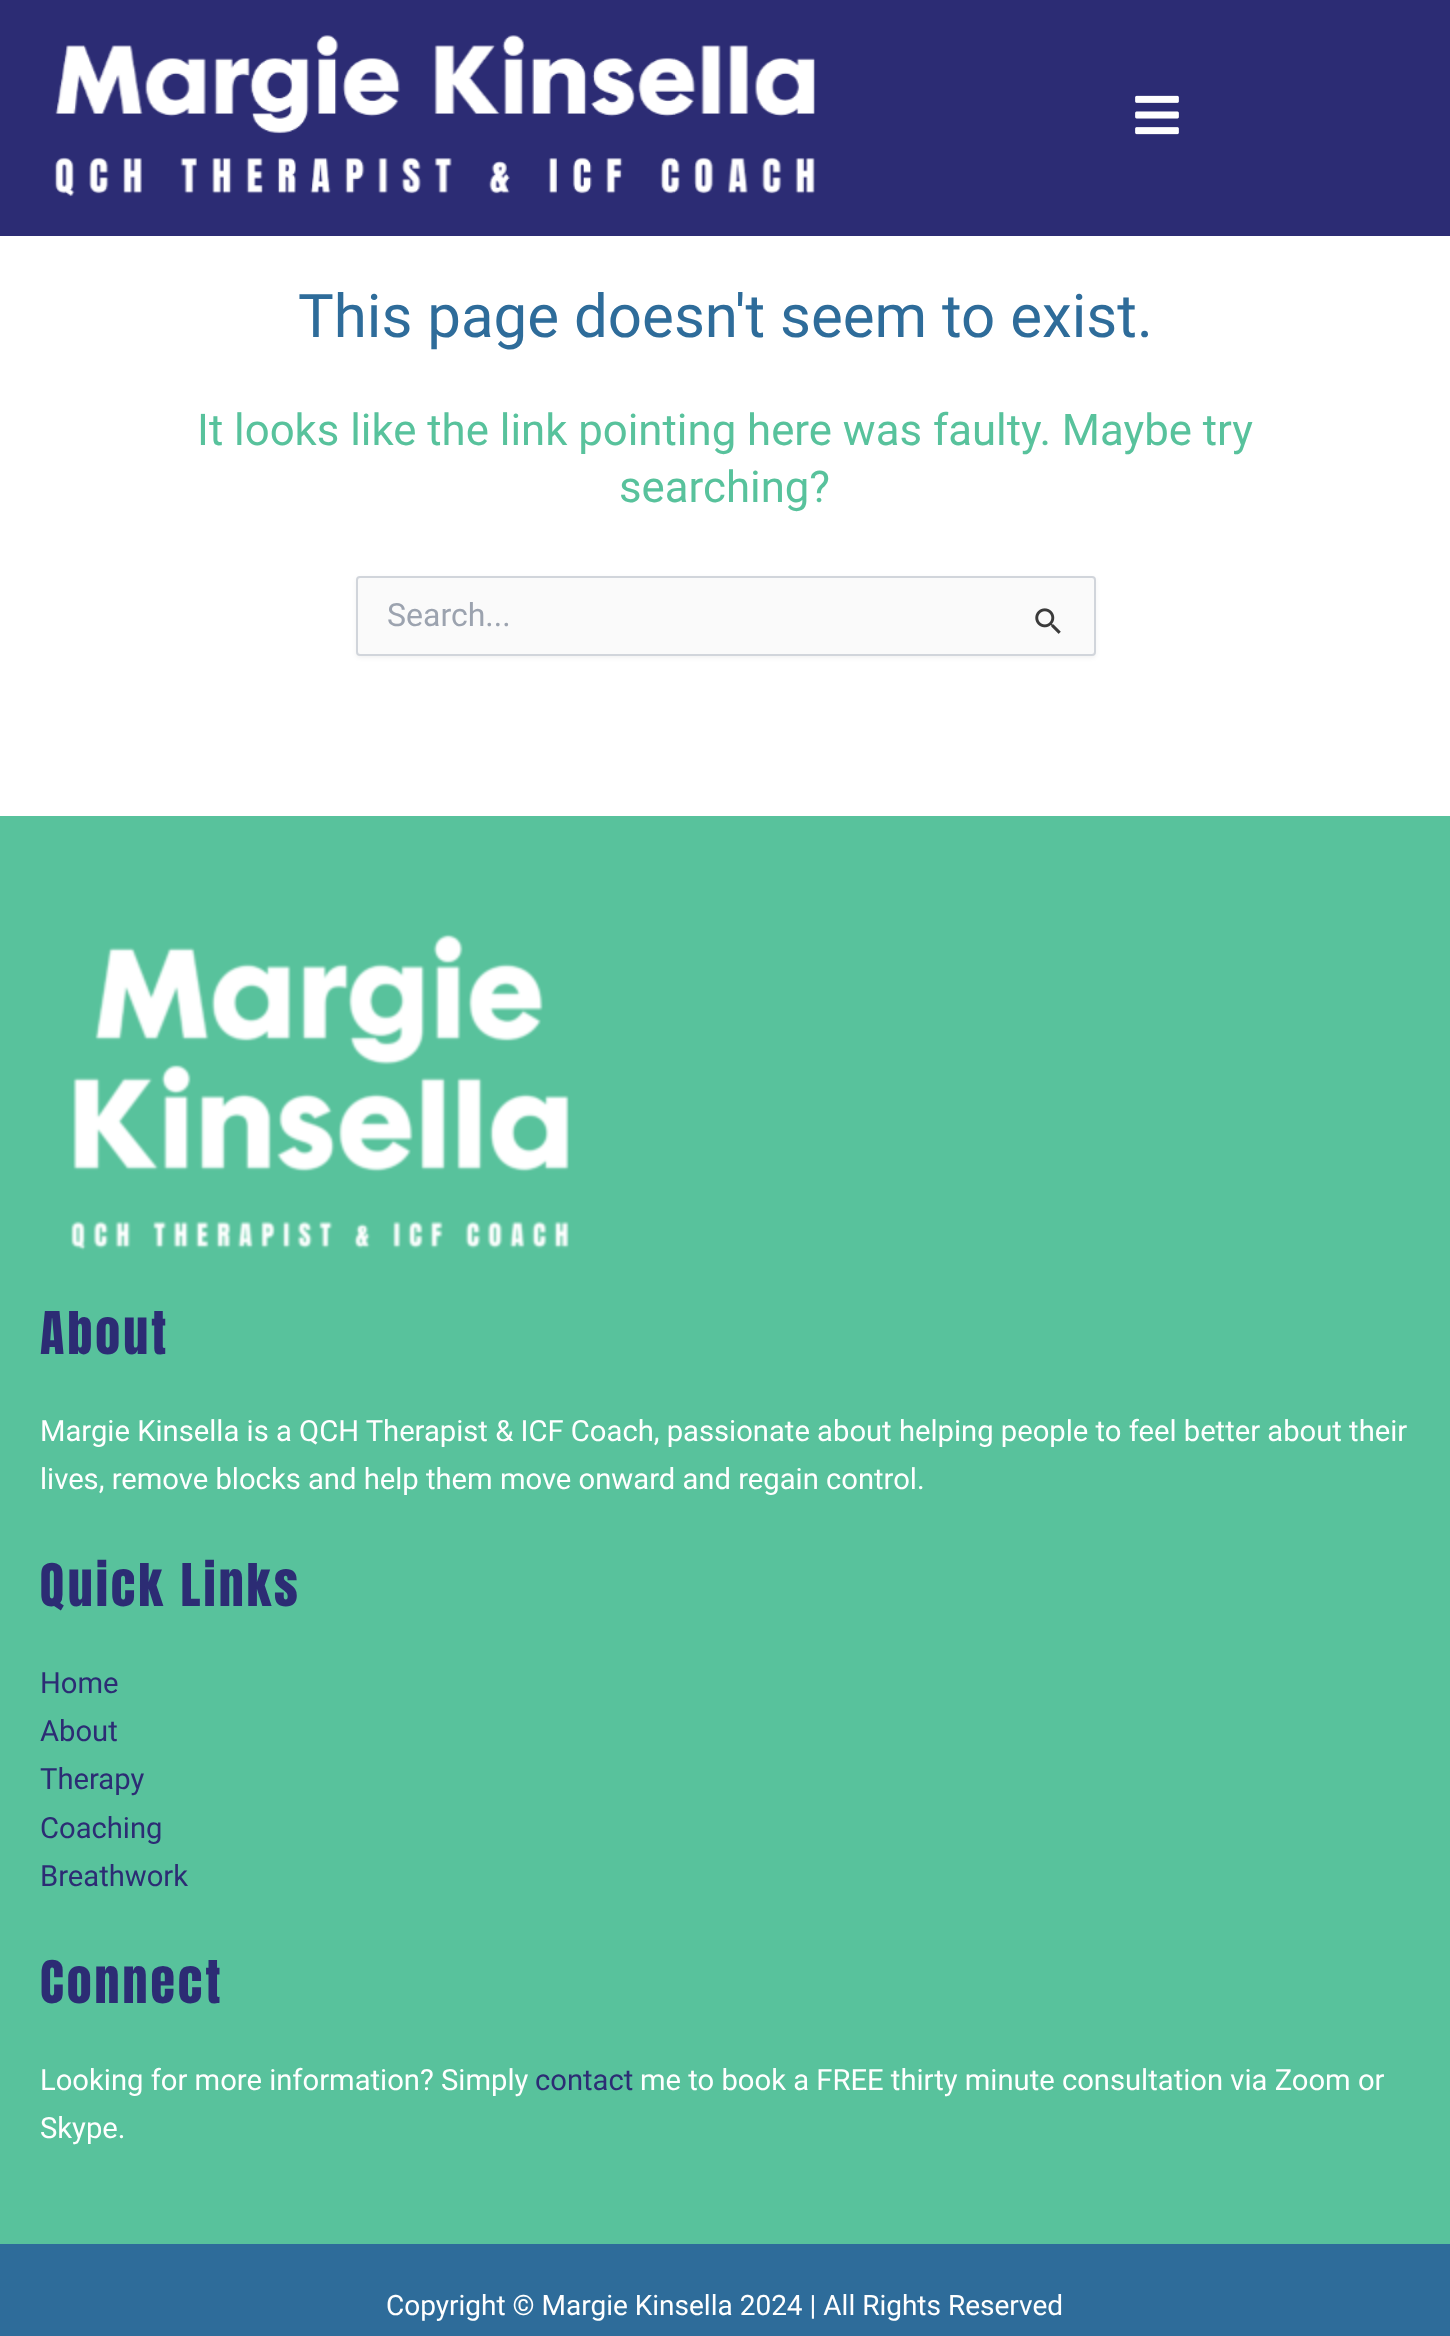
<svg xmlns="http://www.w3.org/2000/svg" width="1450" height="2336">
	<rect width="100%" height="100%" fill="#FFFFFF" />
	<rect x="0" y="0" width="1450" height="236" fill="#2C2C74" />
	<image x="54" y="35" width="761" height="162" href="assets/img1.png" />
	<image x="1135" y="95" width="44" height="40" href="assets/img2.png" />
	<text x="298" y="337" font-family="Roboto" font-size="60" fill="#2E6C9A">This page doesn't seem to exist.</text>
	<g font-family="Roboto" font-size="43.75" fill="#58C29C">
		<text x="197" y="445">It looks like the link pointing here was faulty. Maybe try</text>
		<text x="619" y="502">searching?</text>
	</g>
	<rect x="356" y="578" width="740" height="80" rx="4" fill="#000000" fill-opacity="0.05" filter="blur(2px)" />
	<rect x="357" y="577" width="738" height="78" rx="3" fill="#FAFAFA" stroke="#D1D5DB" stroke-width="2" />
	<text x="387" y="626" font-family="Roboto" font-size="32" fill="#9CA3AF">Search...</text>
	<image x="1035" y="608" width="26" height="26" href="assets/img3.png" />
	<rect x="0" y="816" width="1450" height="1428" fill="#58C29C" />
	<image x="70" y="934" width="499" height="317" href="assets/img4.png" />
	<text x="40" y="1354" font-family="Anton" font-size="50" letter-spacing="3" fill="#2C2C74">About</text>
	<g font-family="Roboto" font-size="29.2" fill="#FFFFFF">
		<text x="40" y="1441">Margie Kinsella is a QCH Therapist &amp; ICF Coach, passionate about helping people to feel better about their</text>
		<text x="40" y="1489">lives, remove blocks and help them move onward and regain control.</text>
	</g>
	<text x="40" y="1606" font-family="Anton" font-size="50" letter-spacing="3" fill="#2C2C74">Quick Links</text>
	<g font-family="Roboto" font-size="29.2" fill="#2C2C74">
		<text x="40" y="1693">Home</text>
		<text x="40" y="1741">About</text>
		<text x="40" y="1789">Therapy</text>
		<text x="40" y="1838">Coaching</text>
		<text x="40" y="1886">Breathwork</text>
	</g>
	<text x="40" y="2003" font-family="Anton" font-size="50" letter-spacing="3" fill="#2C2C74">Connect</text>
	<text x="40" y="2090" font-family="Roboto" font-size="29.2" fill="#FFFFFF">Looking for more information? Simply</text>
	<text x="535" y="2090" font-family="Roboto" font-size="29.2" fill="#2C2C74">contact</text>
	<g font-family="Roboto" font-size="29.2" fill="#FFFFFF">
		<text x="640" y="2090">me to book a FREE thirty minute consultation via Zoom or</text>
		<text x="40" y="2138">Skype.</text>
	</g>
	<rect x="0" y="2244" width="1450" height="92" fill="#2E6C9A" />
	<text x="386" y="2315" font-family="Roboto" font-size="28" fill="#FFFFFF">Copyright © Margie Kinsella 2024 | All Rights Reserved</text>
</svg>
